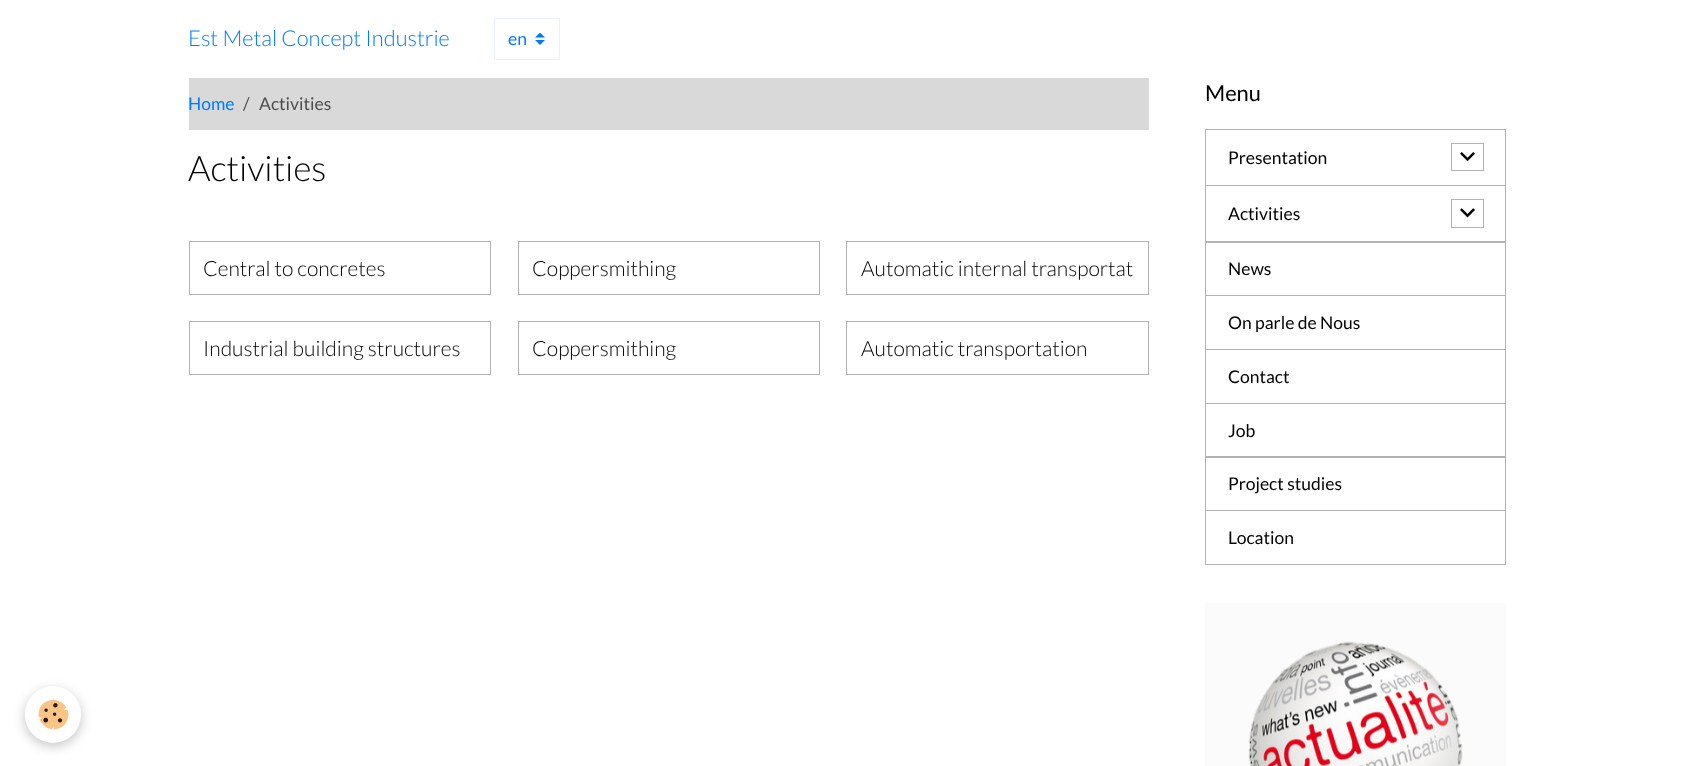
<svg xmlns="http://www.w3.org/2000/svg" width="1695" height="766">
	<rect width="100%" height="100%" fill="#FFFFFF" />
	<text x="188" y="46" font-family="Lato" font-size="21.9" font-weight="300" fill="#007BFF">Est Metal Concept Industrie</text>
	<image x="535" y="33" width="10" height="12" href="assets/img1.png" />
	<rect x="494.5" y="18.5" width="65" height="41" fill="none" stroke="#E6F2FF" />
	<text x="508" y="45" font-family="Lato" font-size="17.5" fill="#007BFF">en</text>
	<rect x="189" y="78" width="960" height="52" fill="#D9D9D9" />
	<text x="188" y="110" font-family="Lato" font-size="17.5" fill="#007BFF">Home</text>
	<g font-family="Lato" font-size="17.5" fill="#4D4D4D">
		<text x="243" y="110">/</text>
		<text x="259" y="110">Activities</text>
	</g>
	<text x="188" y="181" font-family="Lato" font-size="35" font-weight="300" fill="#000000">Activities</text>
	<rect x="189.5" y="241.5" width="301" height="53" fill="none" stroke="#B3B3B3" />
	<text x="203" y="276" font-family="Lato" font-size="21" font-weight="300" fill="#000000">Central to concretes</text>
	<rect x="518.5" y="241.5" width="301" height="53" fill="none" stroke="#B3B3B3" />
	<text x="532" y="276" font-family="Lato" font-size="21" font-weight="300" fill="#000000">Coppersmithing</text>
	<rect x="846.5" y="241.5" width="302" height="53" fill="none" stroke="#B3B3B3" />
	<text x="861" y="276" font-family="Lato" font-size="21" font-weight="300" fill="#000000">Automatic internal transportat</text>
	<rect x="189.5" y="321.5" width="301" height="53" fill="none" stroke="#B3B3B3" />
	<text x="203" y="356" font-family="Lato" font-size="21" font-weight="300" fill="#000000">Industrial building structures</text>
	<rect x="518.5" y="321.5" width="301" height="53" fill="none" stroke="#B3B3B3" />
	<text x="532" y="356" font-family="Lato" font-size="21" font-weight="300" fill="#000000">Coppersmithing</text>
	<rect x="846.5" y="321.5" width="302" height="53" fill="none" stroke="#B3B3B3" />
	<text x="861" y="356" font-family="Lato" font-size="21" font-weight="300" fill="#000000">Automatic transportation</text>
	<text x="1205" y="101" font-family="Lato" font-size="21.9" fill="#000000">Menu</text>
	<rect x="1205.5" y="129.5" width="300" height="56" fill="none" stroke="#B3B3B3" />
	<text x="1228" y="164" font-family="Lato" font-size="17.5" fill="#000000">Presentation</text>
	<rect x="1451.5" y="143.5" width="32" height="27" fill="none" stroke="#B3B3B3" />
	<image x="1460" y="152" width="15" height="10" href="assets/img2.png" />
	<rect x="1205.5" y="185.5" width="300" height="57" fill="none" stroke="#B3B3B3" />
	<text x="1228" y="220" font-family="Lato" font-size="17.5" fill="#000000">Activities</text>
	<rect x="1451.5" y="199.5" width="32" height="28" fill="none" stroke="#B3B3B3" />
	<image x="1460" y="208" width="15" height="10" href="assets/img3.png" />
	<rect x="1205.5" y="241.5" width="300" height="54" fill="none" stroke="#B3B3B3" />
	<text x="1228" y="275" font-family="Lato" font-size="17.5" fill="#000000">News</text>
	<rect x="1205.5" y="295.5" width="300" height="54" fill="none" stroke="#B3B3B3" />
	<text x="1228" y="329" font-family="Lato" font-size="17.5" fill="#000000">On parle de Nous</text>
	<rect x="1205.5" y="349.5" width="300" height="54" fill="none" stroke="#B3B3B3" />
	<text x="1228" y="383" font-family="Lato" font-size="17.5" fill="#000000">Contact</text>
	<rect x="1205.5" y="403.5" width="300" height="54" fill="none" stroke="#B3B3B3" />
	<text x="1228" y="437" font-family="Lato" font-size="17.5" fill="#000000">Job</text>
	<rect x="1205.5" y="456.5" width="300" height="54" fill="none" stroke="#B3B3B3" />
	<text x="1228" y="490" font-family="Lato" font-size="17.5" fill="#000000">Project studies</text>
	<rect x="1205.5" y="510.5" width="300" height="54" fill="none" stroke="#B3B3B3" />
	<text x="1228" y="544" font-family="Lato" font-size="17.5" fill="#000000">Location</text>
	<rect x="1205" y="603" width="301" height="163" fill="#FBFBFB" />
	<image x="1248" y="641" width="215" height="125" href="assets/img4.png" />
	<rect x="25" y="690" width="56" height="56" rx="28" fill="#000000" fill-opacity="0.24" filter="blur(6px)" />
	<rect x="25" y="686" width="56" height="57" rx="28" fill="#FFFFFF" />
	<image x="38" y="699" width="31" height="31" href="assets/img5.png" />
</svg>
